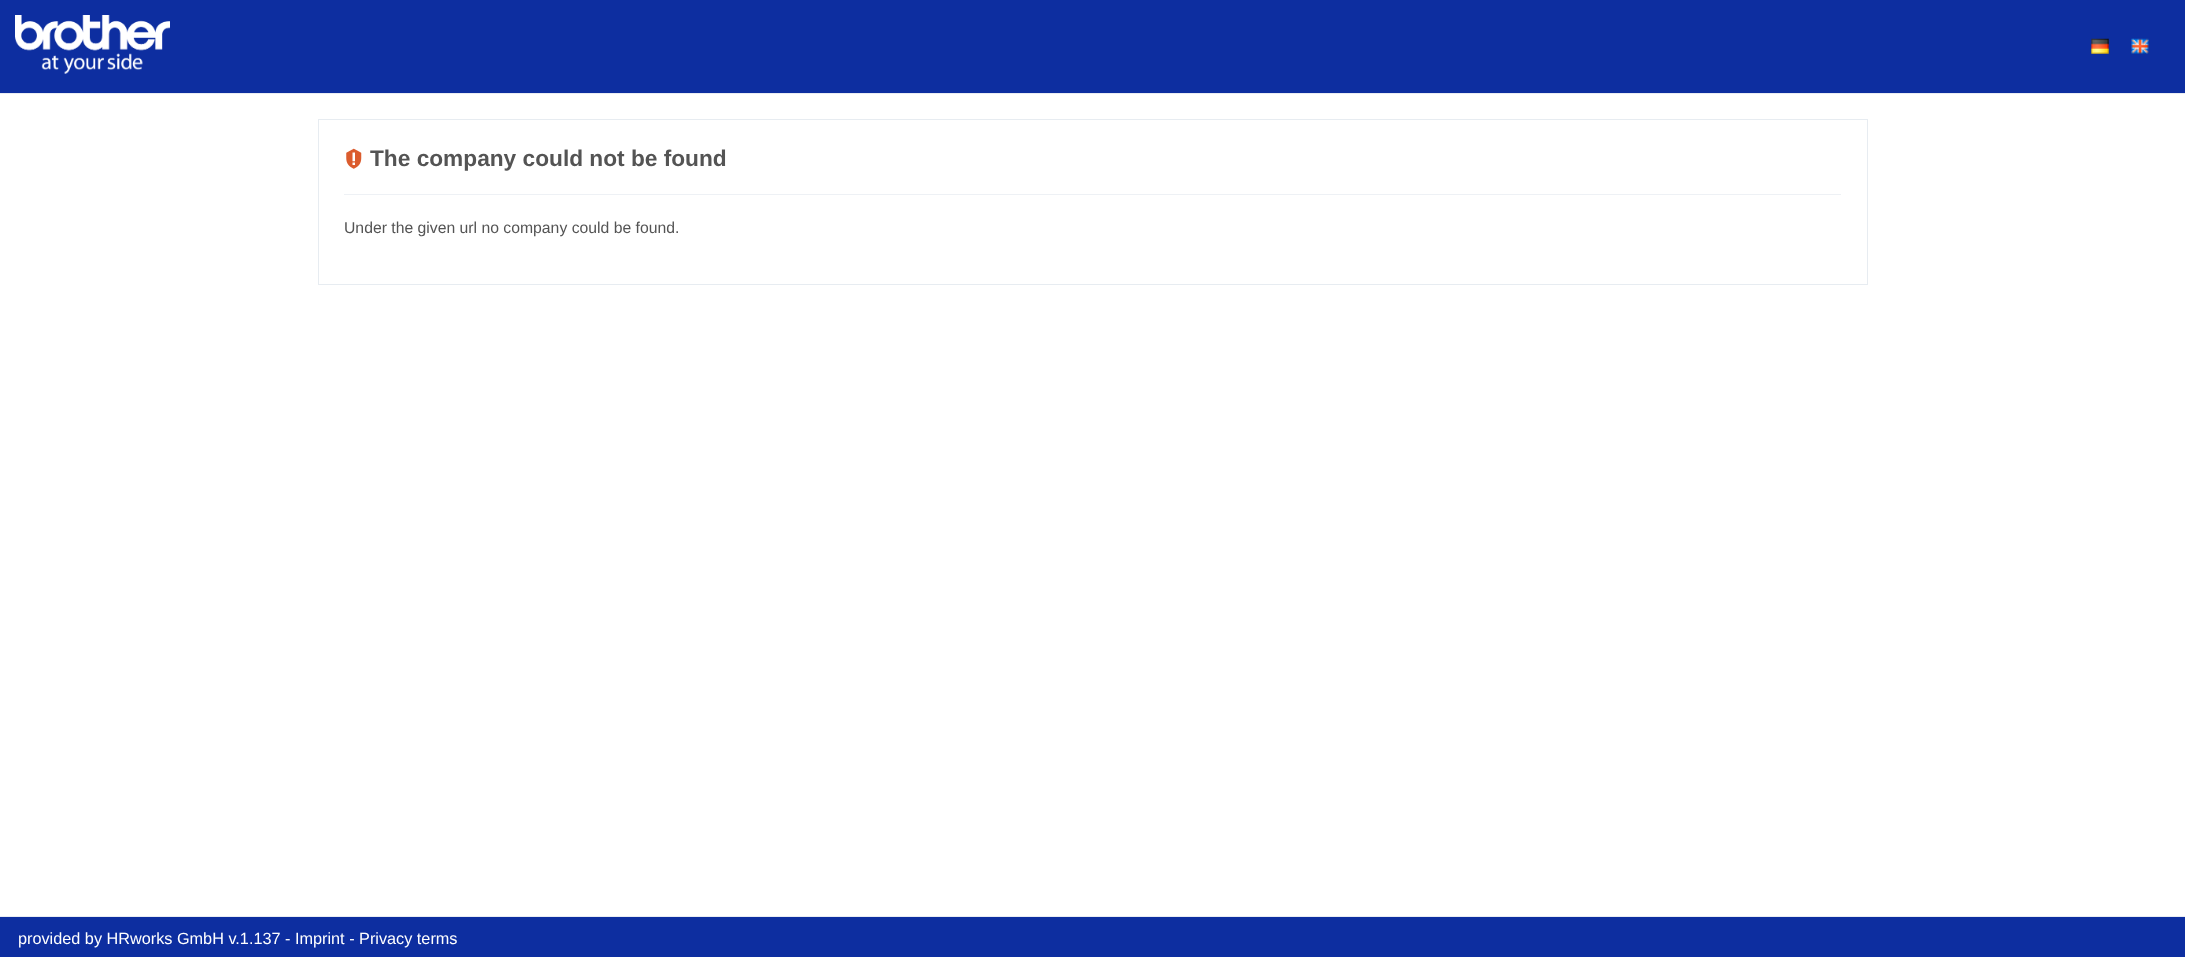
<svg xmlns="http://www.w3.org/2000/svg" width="2185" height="957">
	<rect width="100%" height="100%" fill="#FFFFFF" />
	<rect x="0" y="0" width="2185" height="93" fill="#0D2EA0" />
	<rect x="0" y="93" width="2185" height="1" fill="#E9ECF3" />
	<image x="15" y="15" width="155" height="59" href="assets/img1.png" />
	<image x="2091" y="38" width="18" height="16" href="assets/img2.png" />
	<image x="2131" y="38" width="18" height="16" href="assets/img3.png" />
	<rect x="318.5" y="119.5" width="1549" height="165" fill="none" stroke="#E7ECF1" />
	<rect x="344" y="194" width="1497" height="1" fill="#EEF1F5" />
	<image x="346" y="148" width="16" height="21" href="assets/img4.png" />
	<text x="370" y="166" font-family="Liberation Sans" font-size="22.7" font-weight="700" fill="#545454">The company could not be found</text>
	<text x="344" y="233" font-family="Liberation Sans" font-size="15.75" fill="#545454">Under the given url no company could be found.</text>
	<rect x="0" y="917" width="2185" height="40" fill="#0D2EA0" />
	<rect x="0" y="916" width="2185" height="1" fill="#E9ECF3" />
	<text x="18" y="944" font-family="Liberation Sans" font-size="16.25" fill="#FFFFFF">provided by HRworks GmbH v.1.137 - Imprint - Privacy terms</text>
</svg>
